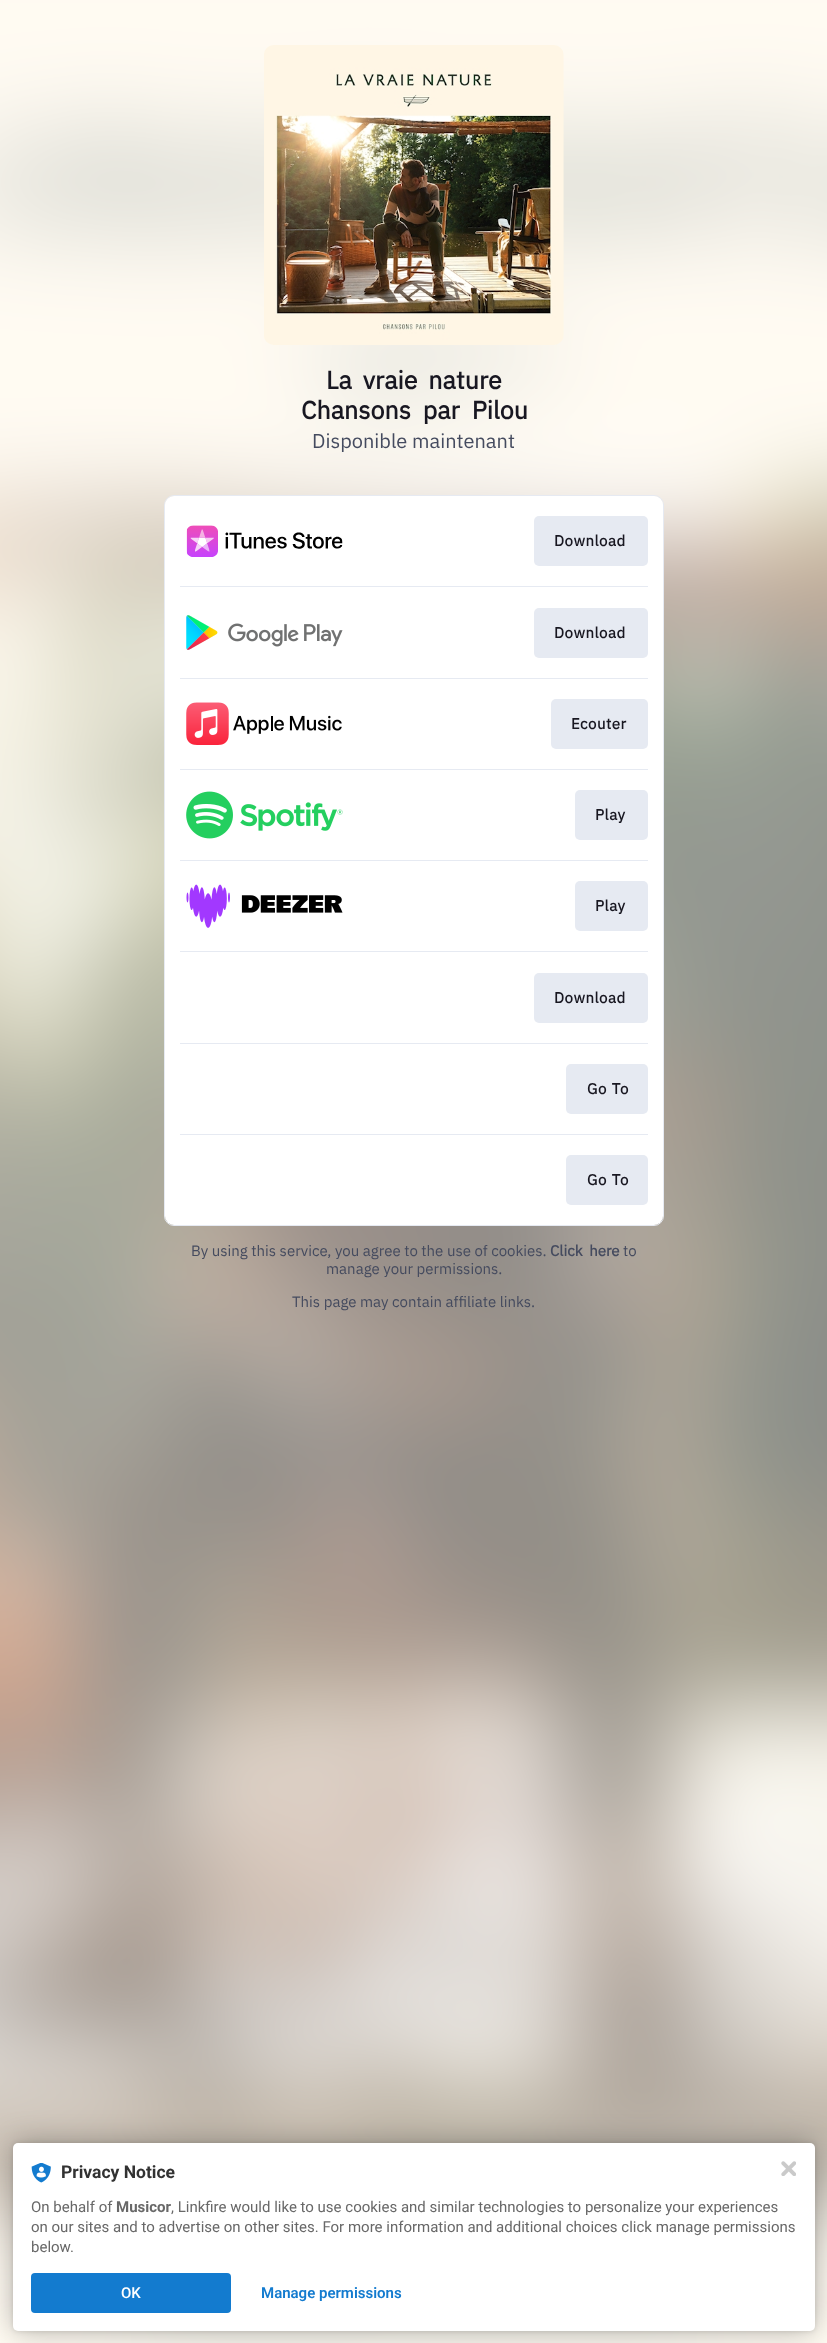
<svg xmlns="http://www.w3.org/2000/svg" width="827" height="2343">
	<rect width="100%" height="100%" fill="#FFFFFF" />
	<image x="0" y="0" width="827" height="2343" href="assets/img1.png" />
	<image x="264" y="45" width="300" height="300" href="assets/img2.png" />
	<g font-family="IBM Plex Sans" font-size="25" font-weight="700" fill="#181721">
		<text x="326" y="389" word-spacing="5">La vraie nature</text>
		<text x="301" y="419" word-spacing="6">Chansons par Pilou</text>
	</g>
	<text x="312" y="448" font-family="IBM Plex Sans" font-size="20" fill="#454B5F">Disponible maintenant</text>
	<rect x="164.5" y="495.5" width="499" height="730" rx="9.5" fill="none" stroke="#E6EAF2" />
	<rect x="165" y="496" width="498" height="729" rx="9" fill="#FFFFFF" />
	<image x="186" y="525" width="157" height="32" href="assets/img3.png" />
	<rect x="534" y="516" width="114" height="50" rx="5" fill="#E6EAF2" />
	<text x="554" y="546" font-family="IBM Plex Sans" font-size="15" font-weight="700" letter-spacing="0.5" fill="#181721">Download</text>
	<rect x="180" y="586" width="468" height="1" fill="#E6EAF2" />
	<image x="186" y="615" width="157" height="35" href="assets/img4.png" />
	<rect x="534" y="608" width="114" height="50" rx="5" fill="#E6EAF2" />
	<text x="554" y="638" font-family="IBM Plex Sans" font-size="15" font-weight="700" letter-spacing="0.5" fill="#181721">Download</text>
	<rect x="180" y="678" width="468" height="1" fill="#E6EAF2" />
	<image x="186" y="702" width="156" height="43" href="assets/img5.png" />
	<rect x="551" y="699" width="97" height="50" rx="5" fill="#E6EAF2" />
	<text x="571" y="729" font-family="IBM Plex Sans" font-size="15" font-weight="700" letter-spacing="0.5" fill="#181721">Ecouter</text>
	<rect x="180" y="769" width="468" height="1" fill="#E6EAF2" />
	<image x="186" y="791" width="157" height="48" href="assets/img6.png" />
	<rect x="575" y="790" width="73" height="50" rx="5" fill="#E6EAF2" />
	<text x="595" y="820" font-family="IBM Plex Sans" font-size="15" font-weight="700" letter-spacing="0.5" fill="#181721">Play</text>
	<rect x="180" y="860" width="468" height="1" fill="#E6EAF2" />
	<image x="186" y="884" width="157" height="44" href="assets/img7.png" />
	<rect x="575" y="881" width="73" height="50" rx="5" fill="#E6EAF2" />
	<text x="595" y="911" font-family="IBM Plex Sans" font-size="15" font-weight="700" letter-spacing="0.5" fill="#181721">Play</text>
	<rect x="180" y="951" width="468" height="1" fill="#E6EAF2" />
	<rect x="534" y="973" width="114" height="50" rx="5" fill="#E6EAF2" />
	<text x="554" y="1003" font-family="IBM Plex Sans" font-size="15" font-weight="700" letter-spacing="0.5" fill="#181721">Download</text>
	<rect x="180" y="1043" width="468" height="1" fill="#E6EAF2" />
	<rect x="566" y="1064" width="82" height="50" rx="5" fill="#E6EAF2" />
	<text x="587" y="1094" word-spacing="1" font-family="IBM Plex Sans" font-size="15" font-weight="700" letter-spacing="0.5" fill="#181721">Go To</text>
	<rect x="180" y="1134" width="468" height="1" fill="#E6EAF2" />
	<rect x="566" y="1155" width="82" height="50" rx="5" fill="#E6EAF2" />
	<text x="587" y="1185" word-spacing="1" font-family="IBM Plex Sans" font-size="15" font-weight="700" letter-spacing="0.5" fill="#181721">Go To</text>
	<text x="191" y="1256" font-family="IBM Plex Sans" font-size="15" fill="#454B5F">By using this service, you agree to the use of cookies.</text>
	<text x="550" y="1256" word-spacing="3" font-family="IBM Plex Sans" font-size="15" font-weight="700" fill="#454B5F">Click here</text>
	<g font-family="IBM Plex Sans" font-size="15" fill="#454B5F">
		<text x="623" y="1256">to</text>
		<text x="326" y="1274">manage your permissions.</text>
		<text x="292" y="1307">This page may contain affiliate links.</text>
	</g>
	<rect x="13" y="2143" width="802" height="188" rx="5" fill="#000000" fill-opacity="0.12" filter="blur(2.5px)" />
	<rect x="13" y="2143" width="802" height="188" rx="5" fill="#000000" fill-opacity="0.3" filter="blur(15px)" />
	<rect x="13" y="2143" width="802" height="188" rx="5" fill="#FFFFFF" />
	<image x="781" y="2161" width="15" height="15" href="assets/img8.png" />
	<image x="31" y="2163" width="20" height="20" href="assets/img9.png" />
	<text x="61" y="2178" font-family="Roboto" font-size="17.5" font-weight="700" fill="#323232">Privacy Notice</text>
	<text x="31" y="2212" font-family="Roboto" font-size="15" fill="#686868">On behalf of</text>
	<text x="116" y="2212" font-family="Roboto" font-size="15" font-weight="700" fill="#686868">Musicor</text>
	<g font-family="Roboto" font-size="15" fill="#686868">
		<text x="171" y="2212">, Linkfire would like to use cookies and similar technologies to personalize your experiences</text>
		<text x="31" y="2232">on our sites and to advertise on other sites. For more information and additional choices click manage permissions</text>
		<text x="31" y="2252">below.</text>
	</g>
	<rect x="31" y="2273" width="200" height="40" rx="4" fill="#137BCF" />
	<text x="121" y="2298" font-family="Roboto" font-size="15" font-weight="500" fill="#FFFFFF">OK</text>
	<text x="261" y="2298" font-family="Roboto" font-size="15" font-weight="600" fill="#137BCF">Manage permissions</text>
</svg>
